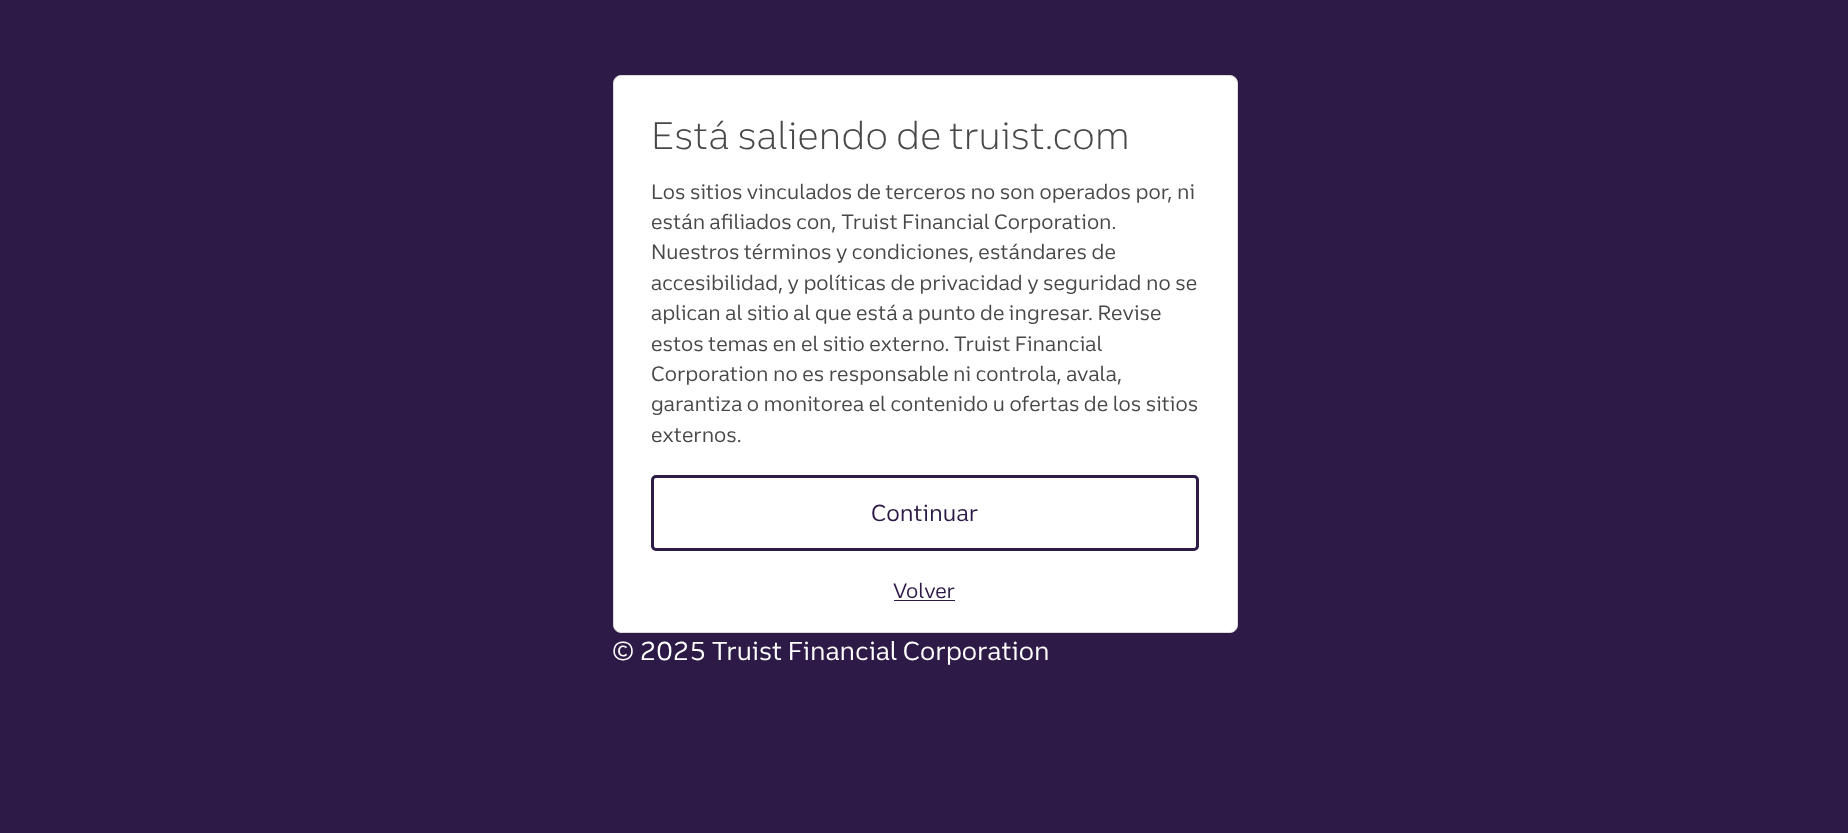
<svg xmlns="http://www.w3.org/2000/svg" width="1848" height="833">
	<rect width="100%" height="100%" fill="#2D1A47" />
	<rect x="613.5" y="75.5" width="624" height="557" rx="7.5" fill="#FFFFFF" stroke="#DCDCDC" />
	<text x="651" y="149" font-family="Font" font-size="37.5" font-weight="300" fill="#484848">Está saliendo de truist.com</text>
	<g font-family="Font" font-size="20.25" fill="#484848">
		<text x="651" y="199">Los sitios vinculados de terceros no son operados por, ni</text>
		<text x="651" y="229">están afiliados con, Truist Financial Corporation.</text>
		<text x="651" y="259">Nuestros términos y condiciones, estándares de</text>
		<text x="651" y="290">accesibilidad, y políticas de privacidad y seguridad no se</text>
		<text x="651" y="320">aplican al sitio al que está a punto de ingresar. Revise</text>
		<text x="651" y="351">estos temas en el sitio externo. Truist Financial</text>
		<text x="651" y="381">Corporation no es responsable ni controla, avala,</text>
		<text x="651" y="411">garantiza o monitorea el contenido u ofertas de los sitios</text>
		<text x="651" y="442">externos.</text>
	</g>
	<rect x="652.5" y="476.5" width="545" height="73" rx="3.5" fill="none" stroke="#2E1A47" stroke-width="3" />
	<text x="871" y="521" font-family="Font" font-size="22.5" fill="#2E1A47">Continuar</text>
	<text x="893" y="598" font-family="Font" font-size="20.25" fill="#2E1A47">Volver</text>
	<rect x="894" y="600" width="61" height="1" fill="#2E1A47" />
	<text x="612" y="660" font-family="Font" font-size="25.3" fill="#FFFFFF">© 2025 Truist Financial Corporation</text>
</svg>
